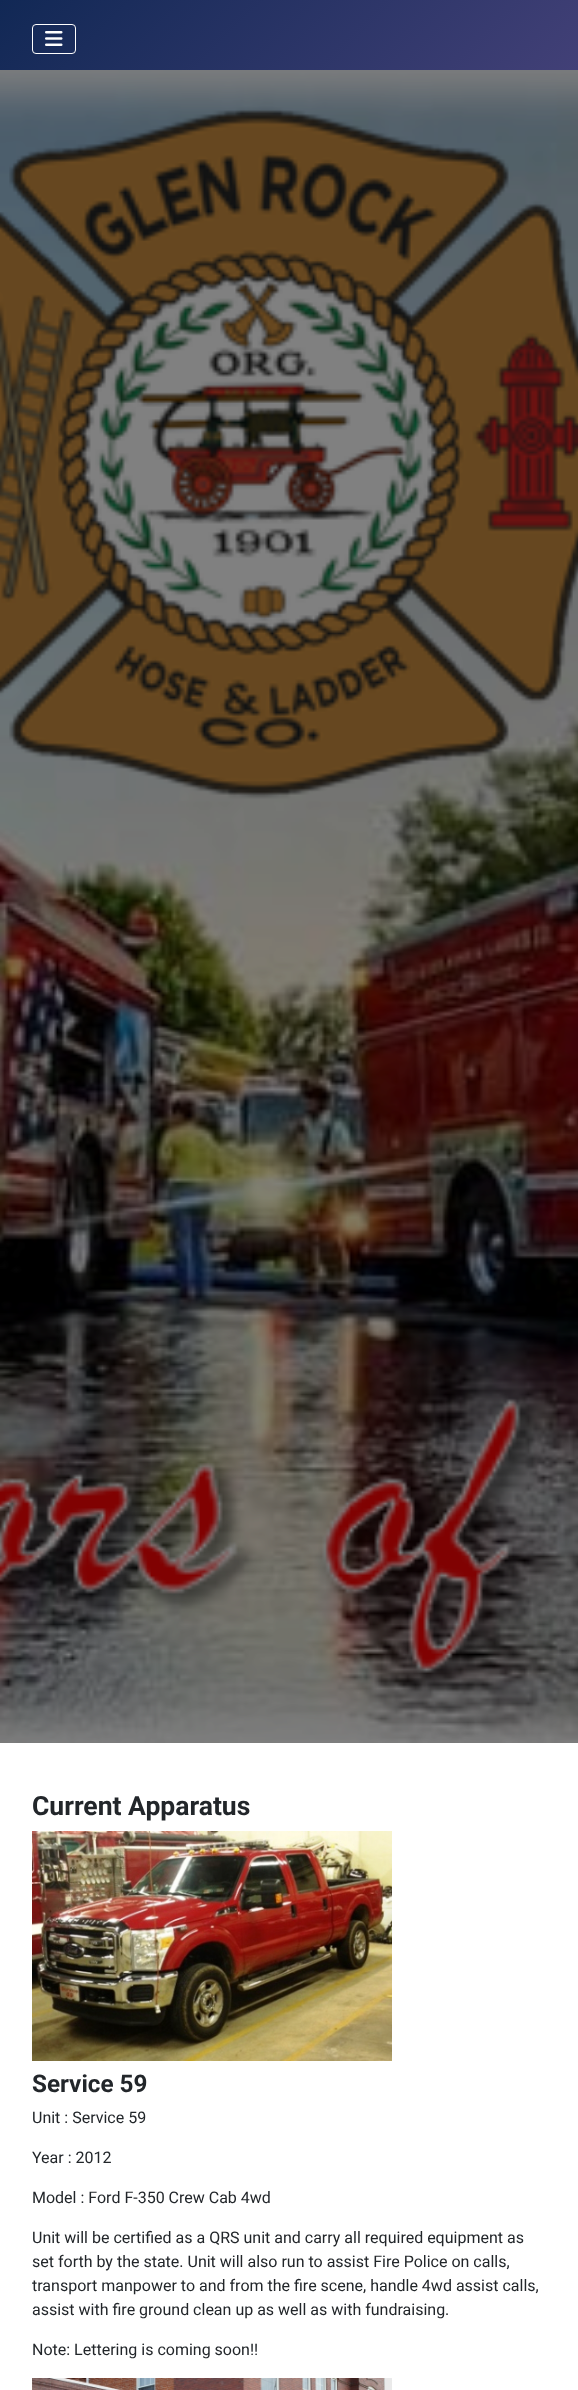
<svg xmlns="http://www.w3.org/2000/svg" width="578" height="2390">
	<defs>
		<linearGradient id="g1" gradientUnits="userSpaceOnUse" x1="127" y1="-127" x2="451" y2="197"><stop offset="0" stop-color="#112855" /><stop offset="1" stop-color="#424077" /></linearGradient>
	</defs>
	<rect width="100%" height="100%" fill="#FFFFFF" />
	<rect x="0" y="0" width="578" height="70" fill="url(#g1)" />
	<rect x="32.5" y="24.5" width="43" height="29" rx="3.5" fill="none" stroke="#FFFFFF" />
	<image x="45" y="31" width="18" height="15" href="assets/img1.png" />
	<image x="0" y="70" width="578" height="1673" href="assets/img2.png" />
	<text x="32" y="1815" font-family="Roboto" font-size="26.5" font-weight="700" fill="#22262A">Current Apparatus</text>
	<image x="32" y="1831" width="360" height="230" href="assets/img3.png" />
	<text x="32" y="2092" font-family="Roboto" font-size="24.25" font-weight="700" fill="#22262A">Service 59</text>
	<g font-family="Roboto" font-size="16" fill="#22262A">
		<text x="32" y="2123">Unit : Service 59</text>
		<text x="32" y="2163">Year : 2012</text>
		<text x="32" y="2203">Model : Ford F-350 Crew Cab 4wd</text>
		<text x="32" y="2243">Unit will be certified as a QRS unit and carry all required equipment as</text>
		<text x="32" y="2267">set forth by the state. Unit will also run to assist Fire Police on calls,</text>
		<text x="32" y="2291">transport manpower to and from the fire scene, handle 4wd assist calls,</text>
		<text x="32" y="2315">assist with fire ground clean up as well as with fundraising.</text>
		<text x="32" y="2355">Note: Lettering is coming soon!!</text>
	</g>
	<image x="32" y="2378" width="360" height="12" href="assets/img4.png" />
</svg>
